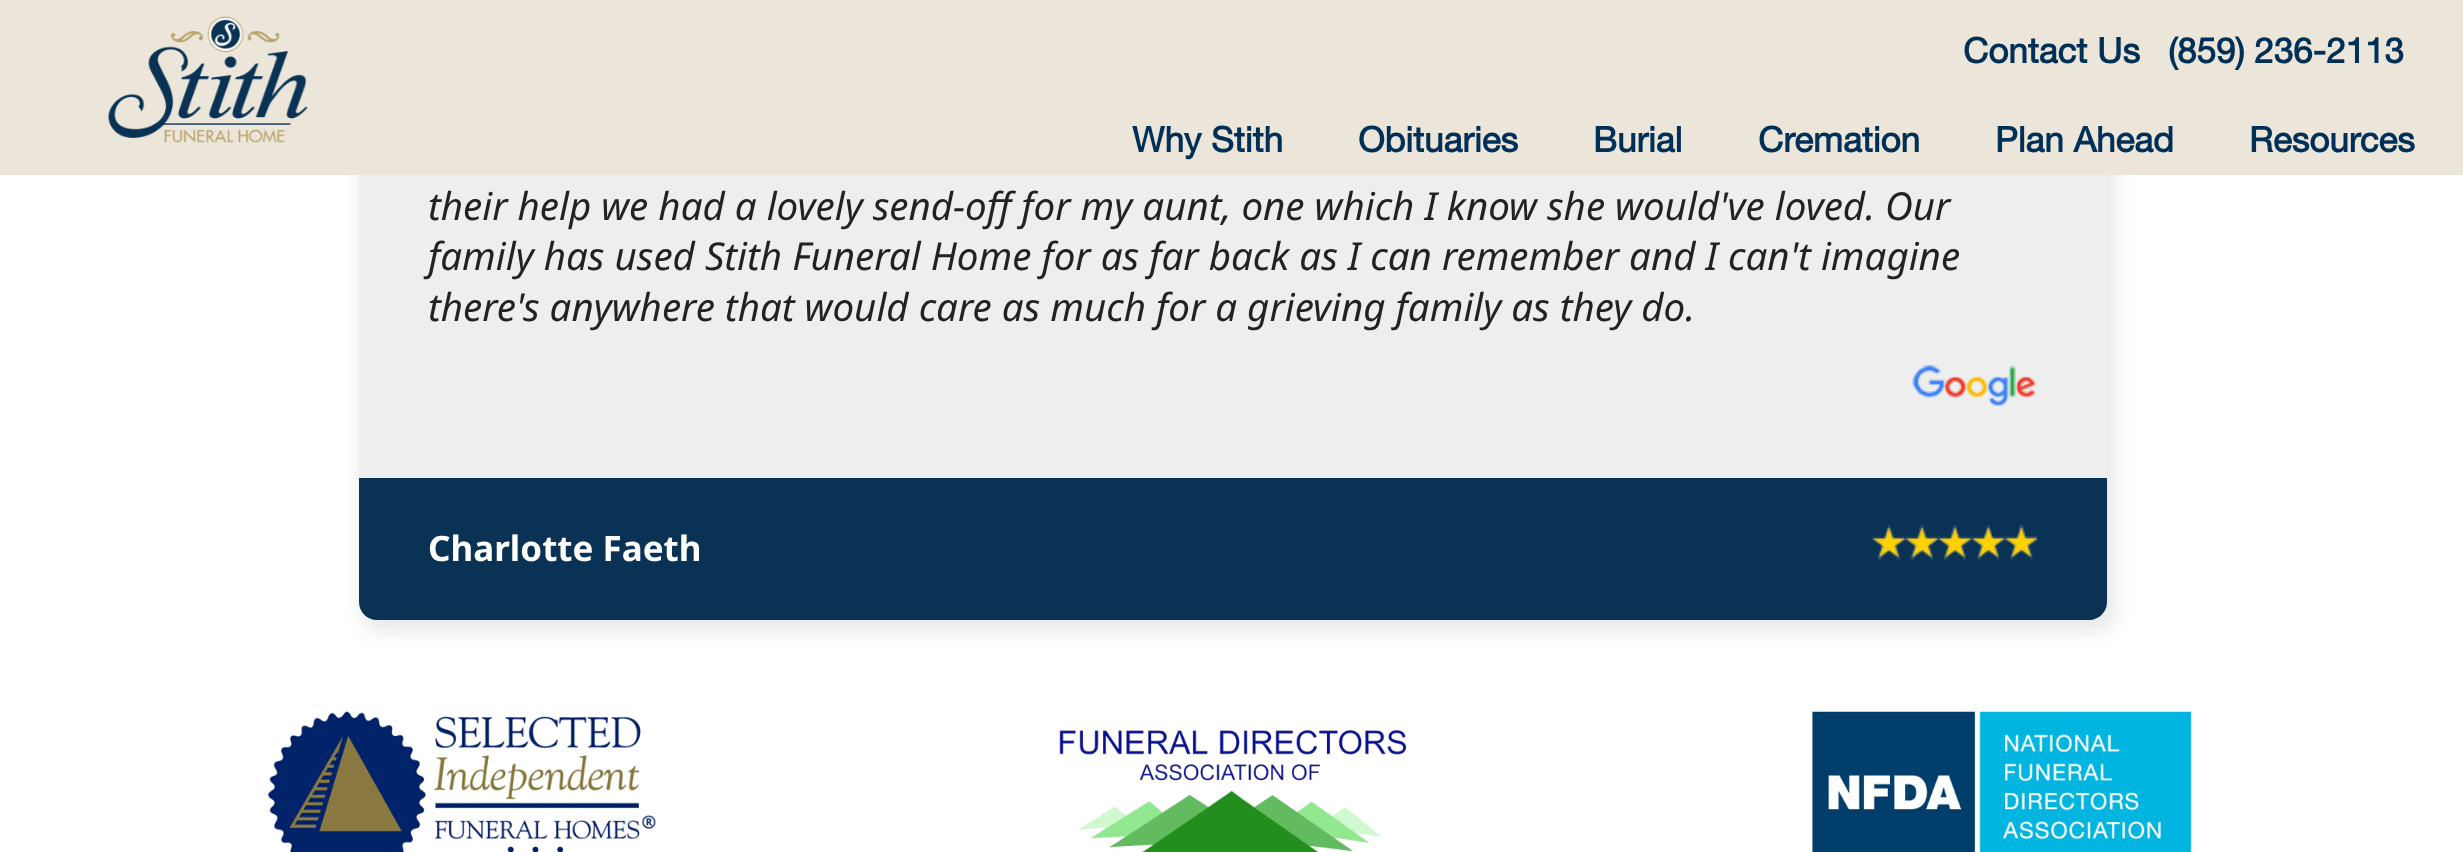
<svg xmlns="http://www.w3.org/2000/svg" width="2463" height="852">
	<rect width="100%" height="100%" fill="#FFFFFF" />
	<rect x="361" y="-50" width="1755" height="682" rx="21" fill="#000000" fill-opacity="0.09" filter="blur(9.5px)" />
	<rect x="359" y="-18" width="1748" height="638" rx="18" fill="#EEEEEE" />
	<rect x="0" y="0" width="2463" height="175" fill="#ECE6DA" />
	<image x="108" y="16" width="200" height="127" href="assets/img1.png" />
	<g font-family="Helvetica Neue" font-size="35" font-weight="700" fill="#003057">
		<text x="1963" y="63">Contact Us</text>
		<text x="2168" y="63">(859) 236-2113</text>
		<text x="1132" y="152">Why Stith</text>
		<text x="1358" y="152">Obituaries</text>
		<text x="1593" y="152">Burial</text>
		<text x="1758" y="152">Cremation</text>
		<text x="1995" y="152">Plan Ahead</text>
		<text x="2249" y="152">Resources</text>
	</g>
	<g font-family="Noto Sans" font-size="38.5" font-style="italic" fill="#222222">
		<text x="428" y="220">their help we had a lovely send-off for my aunt, one which I know she would've loved. Our</text>
		<text x="428" y="270">family has used Stith Funeral Home for as far back as I can remember and I can't imagine</text>
		<text x="428" y="321">there's anywhere that would care as much for a grieving family as they do.</text>
	</g>
	<image x="1912" y="365" width="124" height="41" href="assets/img2.png" />
	<path d="M359 478H2107V602C2107 612 2099 620 2089 620H377C367 620 359 612 359 602Z" fill="#093254" />
	<text x="428" y="561" font-family="Noto Sans" font-size="35" font-weight="700" fill="#FFFFFF">Charlotte Faeth</text>
	<image x="1872" y="524" width="165" height="36" href="assets/img3.png" />
	<image x="267" y="711" width="389" height="141" href="assets/img4.png" />
	<image x="1059" y="730" width="348" height="122" href="assets/img5.png" />
	<image x="1812" y="711" width="380" height="141" href="assets/img6.png" />
</svg>
